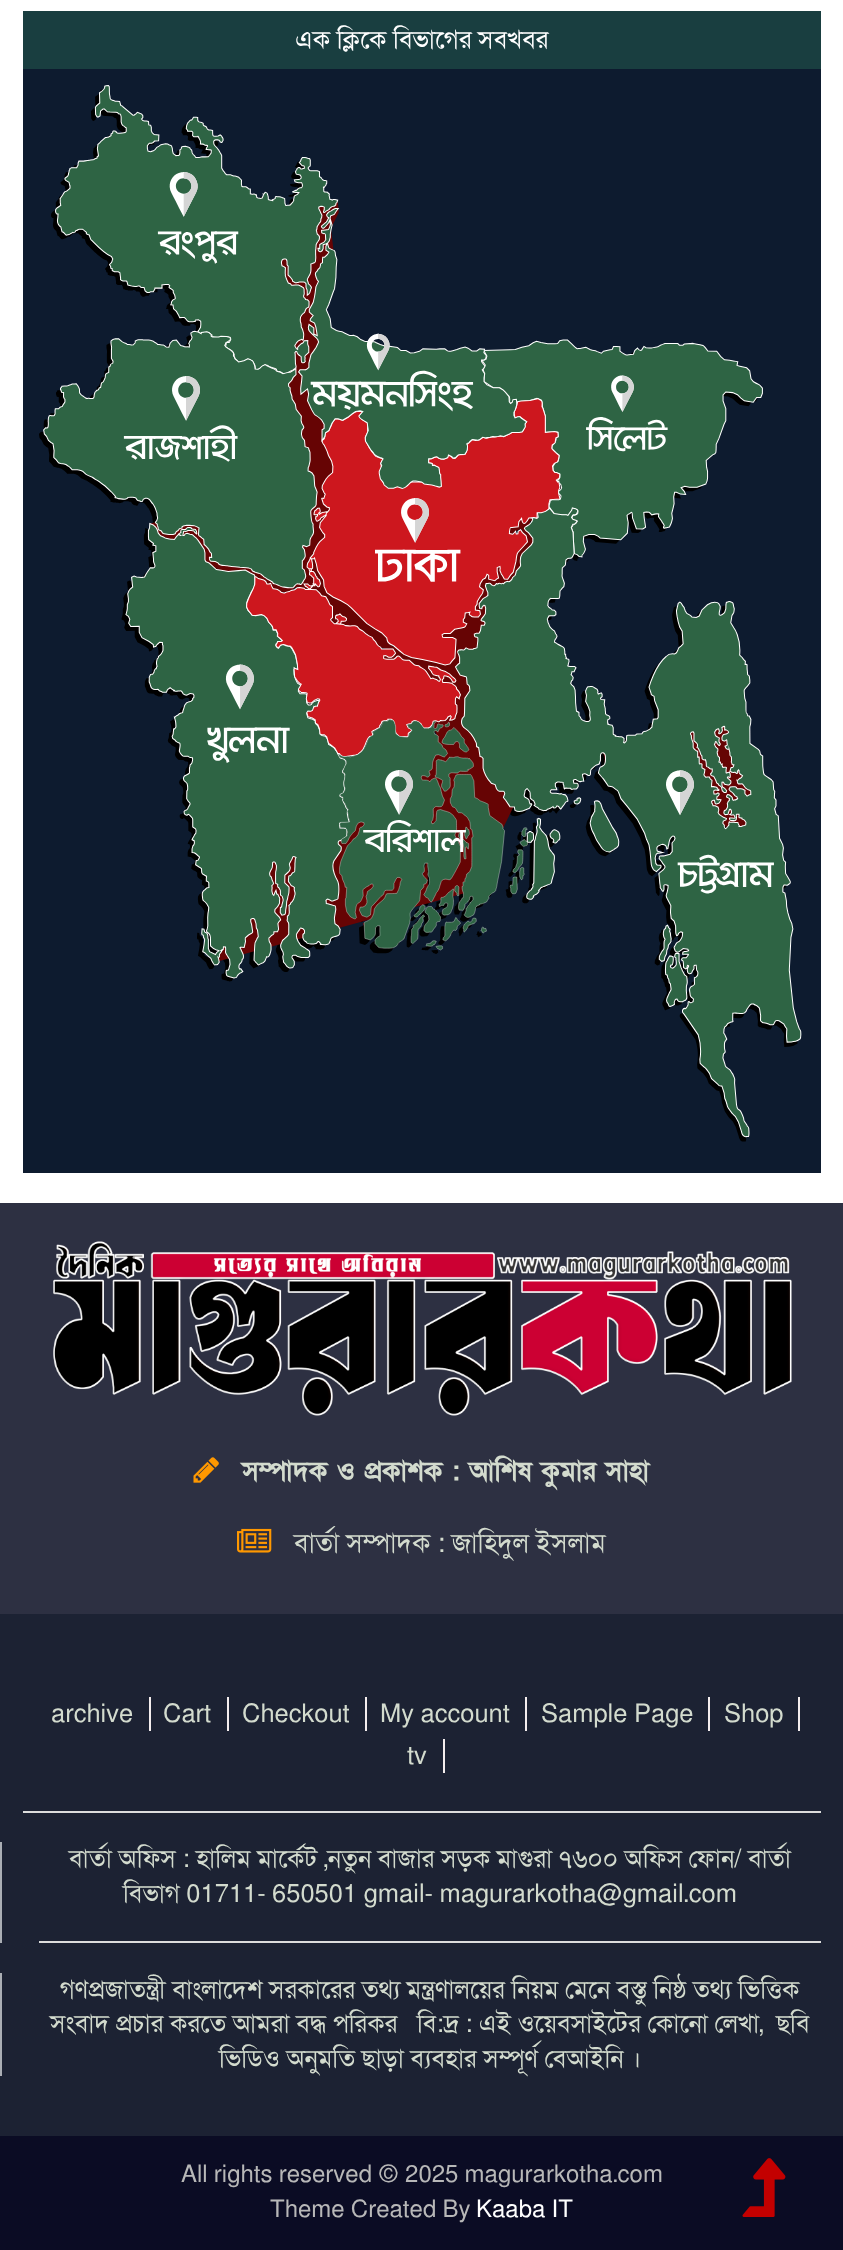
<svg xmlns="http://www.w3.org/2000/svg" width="843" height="2250">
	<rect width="100%" height="100%" fill="#FFFFFF" />
	<rect x="23" y="11" width="798" height="58" fill="#193E40" />
	<text x="295" y="48" font-family="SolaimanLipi" font-size="25.5" fill="#FFFFFF">এক ক্লিকে বিভাগের সবখবর</text>
	<rect x="23" y="69" width="798" height="1104" fill="#0D1B2F" />
	<image x="39" y="85" width="763" height="1057" href="assets/img1.png" />
	<rect x="0" y="1203" width="843" height="411" fill="#2D3042" />
	<image x="53" y="1241" width="739" height="175" href="assets/img2.png" />
	<image x="193" y="1457" width="26" height="26" href="assets/img3.png" />
	<text x="242" y="1480" font-family="SolaimanLipi" font-size="27" font-weight="700" fill="#D3DBCE">সম্পাদক ও প্রকাশক : আশিষ কুমার সাহা</text>
	<image x="237" y="1528" width="35" height="25" href="assets/img4.png" />
	<text x="294" y="1552" font-family="SolaimanLipi" font-size="27" fill="#D3DBCE">বার্তা সম্পাদক : জাহিদুল ইসলাম</text>
	<rect x="0" y="1614" width="843" height="522" fill="#1C2233" />
	<rect x="23" y="1811" width="798" height="2" fill="#DDDDDD" />
	<rect x="149" y="1697" width="2" height="34" fill="#F3EDED" />
	<text x="51" y="1722" font-family="SolaimanLipi" font-size="25.5" fill="#D3DBCE">archive</text>
	<rect x="227" y="1697" width="2" height="34" fill="#F3EDED" />
	<text x="163" y="1722" font-family="SolaimanLipi" font-size="25.5" fill="#D3DBCE">Cart</text>
	<rect x="365" y="1697" width="2" height="34" fill="#F3EDED" />
	<text x="242" y="1722" font-family="SolaimanLipi" font-size="25.5" fill="#D3DBCE">Checkout</text>
	<rect x="525" y="1697" width="2" height="34" fill="#F3EDED" />
	<text x="380" y="1722" font-family="SolaimanLipi" font-size="25.5" fill="#D3DBCE">My account</text>
	<rect x="708" y="1697" width="2" height="34" fill="#F3EDED" />
	<text x="541" y="1722" font-family="SolaimanLipi" font-size="25.5" fill="#D3DBCE">Sample Page</text>
	<rect x="798" y="1697" width="2" height="34" fill="#F3EDED" />
	<text x="724" y="1722" font-family="SolaimanLipi" font-size="25.5" fill="#D3DBCE">Shop</text>
	<rect x="443" y="1739" width="2" height="34" fill="#F3EDED" />
	<text x="407" y="1764" font-family="SolaimanLipi" font-size="25.5" fill="#D3DBCE">tv</text>
	<rect x="0" y="1842" width="2" height="101" fill="#AAAEB4" />
	<rect x="39" y="1941" width="782" height="2" fill="#DDDDDD" />
	<g font-family="SolaimanLipi" font-size="25.5" fill="#D3DBCE">
		<text x="69" y="1867">বার্তা অফিস : হালিম মার্কেট ,নতুন বাজার সড়ক মাগুরা ৭৬০০ অফিস ফোন/ বার্তা</text>
		<text x="123" y="1902">বিভাগ 01711- 650501 gmail- magurarkotha@gmail.com</text>
	</g>
	<rect x="0" y="1973" width="2" height="103" fill="#AAAEB4" />
	<g font-family="SolaimanLipi" font-size="25.5" fill="#D3DBCE">
		<text x="60" y="1998">গণপ্রজাতন্ত্রী বাংলাদেশ সরকারের তথ্য মন্ত্রণালয়ের নিয়ম মেনে বস্তু নিষ্ঠ তথ্য ভিত্তিক</text>
		<text x="50" y="2032">সংবাদ প্রচার করতে আমরা বদ্ধ পরিকর</text>
		<text x="417" y="2032" xml:space="preserve">বি:দ্র : এই ওয়েবসাইটের কোনো লেখা,  ছবি</text>
		<text x="219" y="2067">ভিডিও অনুমতি ছাড়া ব্যবহার সম্পূর্ণ বেআইনি ।</text>
	</g>
	<rect x="0" y="2136" width="843" height="114" fill="#0B0C24" />
	<g font-family="SolaimanLipi" font-size="24" fill="#B8B8B8">
		<text x="181" y="2182">All rights reserved © 2025 magurarkotha.com</text>
		<text x="270" y="2217">Theme Created By</text>
	</g>
	<text x="476" y="2217" font-family="SolaimanLipi" font-size="24" fill="#FFFFFF">Kaaba IT</text>
	<image x="742" y="2158" width="44" height="59" href="assets/img5.png" />
</svg>
